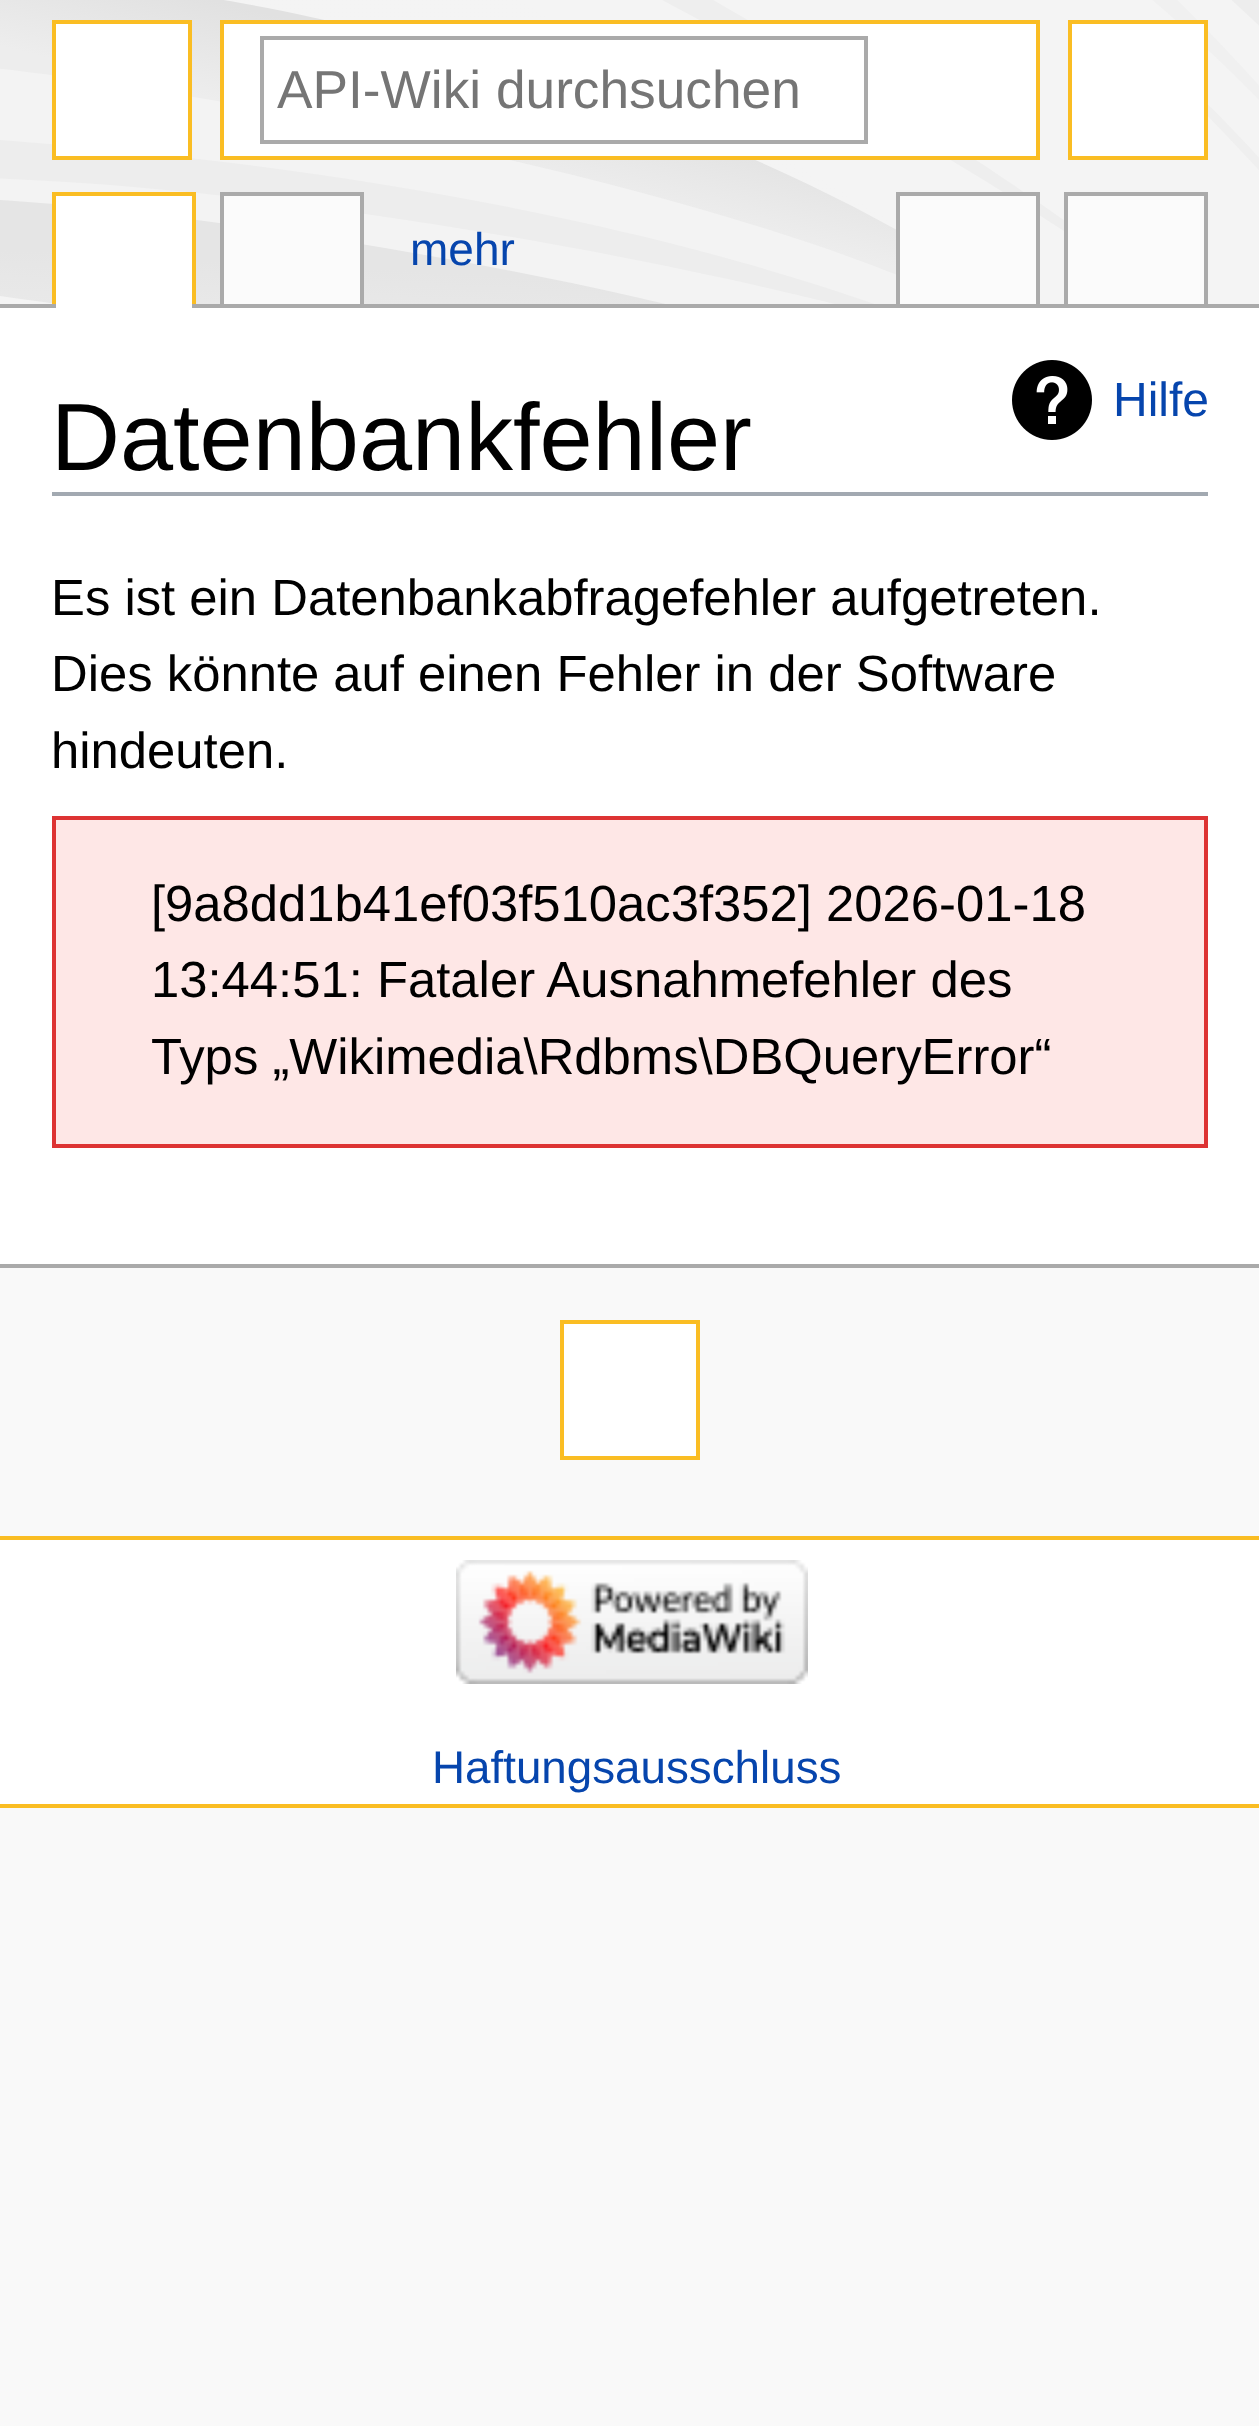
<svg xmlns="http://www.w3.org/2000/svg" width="1259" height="2426">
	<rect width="100%" height="100%" fill="#F9F9F9" />
	<image x="0" y="0" width="1259" height="304" href="assets/img1.png" />
	<rect x="54" y="22" width="136" height="136" fill="#FFFFFF" stroke="#FABD23" stroke-width="4" />
	<rect x="222" y="22" width="816" height="136" fill="#FFFFFF" stroke="#FABD23" stroke-width="4" />
	<rect x="262" y="38" width="604" height="104" fill="none" stroke="#AAAAAA" stroke-width="4" />
	<text x="277" y="108" font-family="Liberation Sans" font-size="53.25" fill="#757575">API-Wiki durchsuchen</text>
	<rect x="1070" y="22" width="136" height="136" fill="#FFFFFF" stroke="#FABD23" stroke-width="4" />
	<rect x="52" y="192" width="144" height="4" fill="#FABD23" />
	<rect x="192" y="192" width="4" height="116" fill="#FABD23" />
	<rect x="52" y="192" width="4" height="116" fill="#FABD23" />
	<rect x="220" y="192" width="144" height="4" fill="#AAAAAA" />
	<rect x="360" y="192" width="4" height="116" fill="#AAAAAA" />
	<rect x="220" y="192" width="4" height="116" fill="#AAAAAA" />
	<rect x="896" y="192" width="144" height="4" fill="#AAAAAA" />
	<rect x="1036" y="192" width="4" height="116" fill="#AAAAAA" />
	<rect x="896" y="192" width="4" height="116" fill="#AAAAAA" />
	<rect x="1064" y="192" width="144" height="4" fill="#AAAAAA" />
	<rect x="1204" y="192" width="4" height="116" fill="#AAAAAA" />
	<rect x="1064" y="192" width="4" height="116" fill="#AAAAAA" />
	<rect x="0" y="304" width="1259" height="4" fill="#AAAAAA" />
	<rect x="56" y="196" width="136" height="112" fill="#FFFFFF" />
	<rect x="224" y="196" width="136" height="108" fill="#FBFBFB" />
	<text x="410" y="265" font-family="Liberation Sans" font-size="46" fill="#0645AD">mehr</text>
	<rect x="900" y="196" width="136" height="108" fill="#FBFBFB" />
	<rect x="1068" y="196" width="136" height="108" fill="#FBFBFB" />
	<rect x="562" y="1322" width="136" height="136" fill="#FFFFFF" stroke="#FABD23" stroke-width="4" />
	<rect x="0" y="308" width="1259" height="956" fill="#FFFFFF" />
	<rect x="0" y="1264" width="1259" height="4" fill="#AAAAAA" />
	<rect x="52" y="492" width="1156" height="4" fill="#A2A9B1" />
	<text x="51" y="470" font-family="Liberation Sans" font-size="95.5" fill="#000000">Datenbankfehler</text>
	<image x="1012" y="360" width="80" height="80" href="assets/img2.png" />
	<text x="1113" y="416" font-family="Liberation Sans" font-size="48" fill="#0645AD">Hilfe</text>
	<g font-family="Liberation Sans" font-size="50.8" fill="#000000">
		<text x="51" y="615">Es ist ein Datenbankabfragefehler aufgetreten.</text>
		<text x="51" y="691">Dies könnte auf einen Fehler in der Software</text>
		<text x="51" y="768">hindeuten.</text>
	</g>
	<rect x="54" y="818" width="1152" height="328" fill="#FEE7E6" stroke="#DD3333" stroke-width="4" />
	<g font-family="Liberation Sans" font-size="50.8" fill="#000000">
		<text x="151" y="921">[9a8dd1b41ef03f510ac3f352] 2026-01-18</text>
		<text x="151" y="997">13:44:51: Fataler Ausnahmefehler des</text>
		<text x="151" y="1074">Typs „Wikimedia\Rdbms\DBQueryError“</text>
	</g>
	<rect x="0" y="1540" width="1259" height="264" fill="#FFFFFF" />
	<rect x="0" y="1536" width="1259" height="4" fill="#FABD23" />
	<rect x="0" y="1804" width="1259" height="4" fill="#FABD23" />
	<image x="456" y="1560" width="352" height="124" href="assets/img3.png" />
	<text x="432" y="1783" font-family="Liberation Sans" font-size="45.75" fill="#0645AD">Haftungsausschluss</text>
</svg>
